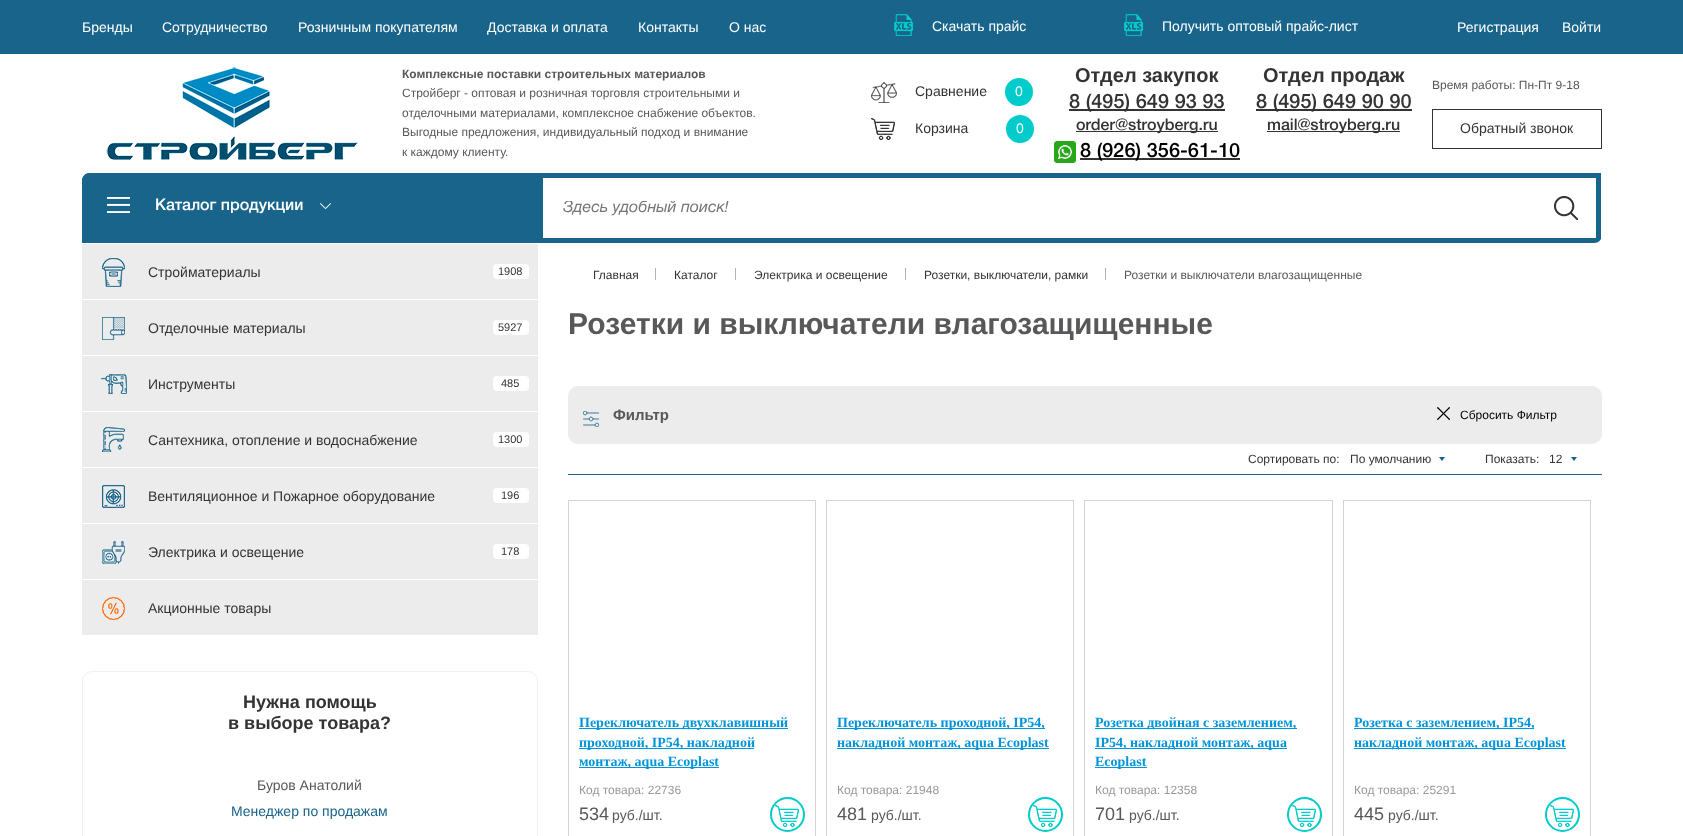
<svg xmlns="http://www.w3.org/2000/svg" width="1683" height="836">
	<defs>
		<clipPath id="clip1"><rect x="563" y="201" width="968" height="15" /></clipPath>
	</defs>
	<rect width="100%" height="100%" fill="#FFFFFF" />
	<rect x="0" y="0" width="1683" height="54" fill="#18648A" />
	<g font-family="Liberation Sans" font-size="14" fill="#FFFFFF">
		<text x="82" y="32">Бренды</text>
		<text x="162" y="32">Сотрудничество</text>
		<text x="298" y="32">Розничным покупателям</text>
		<text x="487" y="32">Доставка и оплата</text>
		<text x="638" y="32">Контакты</text>
		<text x="729" y="32">О нас</text>
	</g>
	<image x="894" y="14" width="19" height="22" href="assets/img1.png" />
	<text x="932" y="31" font-family="Liberation Sans" font-size="14" fill="#FFFFFF">Скачать прайс</text>
	<image x="1124" y="14" width="19" height="22" href="assets/img1.png" />
	<g font-family="Liberation Sans" font-size="14" fill="#FFFFFF">
		<text x="1162" y="31">Получить оптовый прайс-лист</text>
		<text x="1457" y="32">Регистрация</text>
		<text x="1562" y="32">Войти</text>
	</g>
	<image x="106" y="67" width="252" height="93" href="assets/img2.png" />
	<text x="402" y="78" font-family="Liberation Sans" font-size="12" font-weight="700" fill="#58585A">Комплексные поставки строительных материалов</text>
	<g font-family="Liberation Sans" font-size="12" fill="#58585A">
		<text x="402" y="97">Стройберг - оптовая и розничная торговля строительными и</text>
		<text x="402" y="117">отделочными материалами, комплексное снабжение объектов.</text>
		<text x="402" y="136">Выгодные предложения, индивидуальный подход и внимание</text>
		<text x="402" y="156">к каждому клиенту.</text>
	</g>
	<image x="871" y="82" width="26" height="21" href="assets/img3.png" />
	<text x="915" y="96" font-family="Liberation Sans" font-size="14" fill="#333333">Сравнение</text>
	<circle cx="1019" cy="92" r="14" fill="#01CCCB" />
	<text x="1015" y="96" font-family="Liberation Sans" font-size="14" fill="#FFFFFF">0</text>
	<image x="871" y="118" width="24" height="22" href="assets/img4.png" />
	<text x="915" y="133" font-family="Liberation Sans" font-size="14" fill="#333333">Корзина</text>
	<circle cx="1020" cy="129" r="14" fill="#01CCCB" />
	<text x="1016" y="133" font-family="Liberation Sans" font-size="14" fill="#FFFFFF">0</text>
	<text x="1075" y="82" font-family="Liberation Sans" font-size="20" font-weight="700" fill="#333333">Отдел закупок</text>
	<rect x="1069" y="109" width="156" height="2" fill="#333333" />
	<text x="1069" y="108" font-family="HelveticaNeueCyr" font-size="20" font-weight="500" fill="#333333">8 (495) 649 93 93</text>
	<rect x="1076" y="131" width="142" height="1" fill="#333333" />
	<text x="1076" y="130" font-family="HelveticaNeueCyr" font-size="16" font-weight="500" fill="#333333">order@stroyberg.ru</text>
	<image x="1054" y="141" width="22" height="22" href="assets/img5.png" />
	<rect x="1080" y="158" width="160" height="2" fill="#333333" />
	<text x="1080" y="157" font-family="HelveticaNeueCyr" font-size="20" font-weight="500" fill="#000000">8 (926) 356-61-10</text>
	<text x="1263" y="82" font-family="Liberation Sans" font-size="20" font-weight="700" fill="#333333">Отдел продаж</text>
	<rect x="1256" y="109" width="156" height="2" fill="#333333" />
	<text x="1256" y="108" font-family="HelveticaNeueCyr" font-size="20" font-weight="500" fill="#333333">8 (495) 649 90 90</text>
	<rect x="1267" y="131" width="133" height="1" fill="#333333" />
	<text x="1267" y="130" font-family="HelveticaNeueCyr" font-size="16" font-weight="500" fill="#333333">mail@stroyberg.ru</text>
	<text x="1432" y="89" font-family="Liberation Sans" font-size="12" fill="#58585A">Время работы: Пн-Пт 9-18</text>
	<rect x="1432.5" y="109.5" width="169" height="39" fill="none" stroke="#333333" />
	<text x="1460" y="133" font-family="Liberation Sans" font-size="14" fill="#333333">Обратный звонок</text>
	<path d="M90 173H1602V235C1602 239.5 1598.5 243 1594 243H82V181C82 176.5 85.5 173 90 173Z" fill="#18648A" />
	<path d="M90 173H538V243H82V181C82 176.5 85.5 173 90 173Z" fill="#18648A" />
	<image x="107" y="197" width="23" height="16" href="assets/img6.png" />
	<text x="155" y="210" font-family="HelveticaNeueCyr" font-size="16" font-weight="500" fill="#FFFFFF">Каталог продукции</text>
	<image x="320" y="203" width="11" height="6" href="assets/img7.png" />
	<rect x="1601" y="173" width="1" height="70" fill="#FFFFFF" />
	<rect x="543" y="178" width="1053" height="60" fill="#FFFFFF" />
	<g clip-path="url(#clip1)">
		<text x="563" y="212" font-family="HelveticaNeueCyr" font-size="16" font-weight="500" font-style="italic" fill="#757575">Здесь удобный поиск!</text>
	</g>
	<image x="1554" y="196" width="24" height="24" href="assets/img8.png" />
	<rect x="82" y="244" width="456" height="391" fill="#ECECEC" />
	<rect x="82" y="299" width="456" height="1" fill="#FFFFFF" />
	<image x="102" y="258" width="23" height="29" href="assets/img9.png" />
	<text x="148" y="277" font-family="Liberation Sans" font-size="14" fill="#333333">Стройматериалы</text>
	<rect x="493" y="264" width="36" height="15" rx="4" fill="#FFFFFF" />
	<text x="498" y="275" font-family="Liberation Sans" font-size="11" fill="#333333">1908</text>
	<rect x="82" y="355" width="456" height="1" fill="#FFFFFF" />
	<image x="102" y="317" width="23" height="23" href="assets/img10.png" />
	<text x="148" y="333" font-family="Liberation Sans" font-size="14" fill="#333333">Отделочные материалы</text>
	<rect x="493" y="320" width="36" height="15" rx="4" fill="#FFFFFF" />
	<text x="498" y="331" font-family="Liberation Sans" font-size="11" fill="#333333">5927</text>
	<rect x="82" y="411" width="456" height="1" fill="#FFFFFF" />
	<image x="101" y="374" width="26" height="20" href="assets/img11.png" />
	<text x="148" y="389" font-family="Liberation Sans" font-size="14" fill="#333333">Инструменты</text>
	<rect x="493" y="376" width="36" height="15" rx="4" fill="#FFFFFF" />
	<text x="501" y="387" font-family="Liberation Sans" font-size="11" fill="#333333">485</text>
	<rect x="82" y="467" width="456" height="1" fill="#FFFFFF" />
	<image x="102" y="427" width="23" height="25" href="assets/img12.png" />
	<text x="148" y="445" font-family="Liberation Sans" font-size="14" fill="#333333">Сантехника, отопление и водоснабжение</text>
	<rect x="493" y="432" width="36" height="15" rx="4" fill="#FFFFFF" />
	<text x="498" y="443" font-family="Liberation Sans" font-size="11" fill="#333333">1300</text>
	<rect x="82" y="523" width="456" height="1" fill="#FFFFFF" />
	<image x="102" y="485" width="23" height="23" href="assets/img13.png" />
	<text x="148" y="501" font-family="Liberation Sans" font-size="14" fill="#333333">Вентиляционное и Пожарное оборудование</text>
	<rect x="493" y="488" width="36" height="15" rx="4" fill="#FFFFFF" />
	<text x="501" y="499" font-family="Liberation Sans" font-size="11" fill="#333333">196</text>
	<rect x="82" y="579" width="456" height="1" fill="#FFFFFF" />
	<image x="102" y="541" width="23" height="23" href="assets/img14.png" />
	<text x="148" y="557" font-family="Liberation Sans" font-size="14" fill="#333333">Электрика и освещение</text>
	<rect x="493" y="544" width="36" height="15" rx="4" fill="#FFFFFF" />
	<text x="501" y="555" font-family="Liberation Sans" font-size="11" fill="#333333">178</text>
	<image x="102" y="597" width="23" height="23" href="assets/img15.png" />
	<text x="148" y="613" font-family="Liberation Sans" font-size="14" fill="#333333">Акционные товары</text>
	<rect x="82.5" y="671.5" width="455" height="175" rx="9.5" fill="none" stroke="#EDF2F4" />
	<g font-family="Liberation Sans" font-size="18" font-weight="700" fill="#333333">
		<text x="243" y="708">Нужна помощь</text>
		<text x="228" y="729">в выборе товара?</text>
	</g>
	<text x="257" y="790" font-family="Liberation Sans" font-size="14" fill="#58585A">Буров Анатолий</text>
	<text x="231" y="816" font-family="Liberation Sans" font-size="14" fill="#18648A">Менеджер по продажам</text>
	<text x="593" y="279" font-family="Liberation Sans" font-size="12" fill="#333333">Главная</text>
	<rect x="655" y="268" width="1" height="12" fill="#B3B3B3" />
	<text x="674" y="279" font-family="Liberation Sans" font-size="12" fill="#333333">Каталог</text>
	<rect x="735" y="268" width="1" height="12" fill="#B3B3B3" />
	<text x="754" y="279" font-family="Liberation Sans" font-size="12" fill="#333333">Электрика и освещение</text>
	<rect x="905" y="268" width="1" height="12" fill="#B3B3B3" />
	<text x="924" y="279" font-family="Liberation Sans" font-size="12" fill="#333333">Розетки, выключатели, рамки</text>
	<rect x="1105" y="268" width="1" height="12" fill="#B3B3B3" />
	<text x="1124" y="279" font-family="Liberation Sans" font-size="12" fill="#58585A">Розетки и выключатели влагозащищенные</text>
	<text x="568" y="334" font-family="Liberation Sans" font-size="30" font-weight="700" fill="#58585A">Розетки и выключатели влагозащищенные</text>
	<rect x="568" y="386" width="1034" height="58" rx="10" fill="#ECECEC" />
	<image x="583" y="411" width="16" height="16" href="assets/img16.png" />
	<text x="613" y="420" font-family="Liberation Sans" font-size="15" font-weight="700" fill="#58585A">Фильтр</text>
	<image x="1437" y="407" width="13" height="13" href="assets/img17.png" />
	<text x="1460" y="419" font-family="Liberation Sans" font-size="12" fill="#000000">Сбросить Фильтр</text>
	<rect x="568" y="474" width="1034" height="1" fill="#18648A" />
	<g font-family="Liberation Sans" font-size="12" fill="#333333">
		<text x="1248" y="463">Сортировать по:</text>
		<text x="1350" y="463">По умолчанию</text>
	</g>
	<path d="M1439 457H1445L1442 461Z" fill="#18648A" />
	<g font-family="Liberation Sans" font-size="12" fill="#333333">
		<text x="1485" y="463">Показать:</text>
		<text x="1549" y="463">12</text>
	</g>
	<path d="M1571 457H1577L1574 461Z" fill="#18648A" />
	<rect x="568.5" y="500.5" width="247" height="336" fill="none" stroke="#D3D3D3" />
	<rect x="579" y="728" width="209" height="1" fill="#0095DA" />
	<text x="579" y="727" font-family="Liberation Serif" font-size="14" font-weight="700" fill="#0095DA">Переключатель двухклавишный</text>
	<rect x="579" y="748" width="175" height="1" fill="#0095DA" />
	<text x="579" y="747" font-family="Liberation Serif" font-size="14" font-weight="700" fill="#0095DA">проходной, IP54, накладной</text>
	<rect x="579" y="767" width="140" height="1" fill="#0095DA" />
	<text x="579" y="766" font-family="Liberation Serif" font-size="14" font-weight="700" fill="#0095DA">монтаж, aqua Ecoplast</text>
	<text x="579" y="794" font-family="Liberation Sans" font-size="12" fill="#999999">Код товара: 22736</text>
	<text x="579" y="820" font-family="Liberation Sans" font-size="18" fill="#58585A">534</text>
	<text x="612" y="820" font-family="Liberation Sans" font-size="14" fill="#58585A">руб./шт.</text>
	<circle cx="787.5" cy="814.5" r="16.5" fill="none" stroke="#01CCCB" stroke-width="2" />
	<image x="775" y="805" width="24" height="22" href="assets/img18.png" />
	<rect x="826.5" y="500.5" width="247" height="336" fill="none" stroke="#D3D3D3" />
	<rect x="837" y="728" width="208" height="1" fill="#0095DA" />
	<text x="837" y="727" font-family="Liberation Serif" font-size="14" font-weight="700" fill="#0095DA">Переключатель проходной, IP54,</text>
	<rect x="837" y="748" width="212" height="1" fill="#0095DA" />
	<text x="837" y="747" font-family="Liberation Serif" font-size="14" font-weight="700" fill="#0095DA">накладной монтаж, aqua Ecoplast</text>
	<text x="837" y="794" font-family="Liberation Sans" font-size="12" fill="#999999">Код товара: 21948</text>
	<text x="837" y="820" font-family="Liberation Sans" font-size="18" fill="#58585A">481</text>
	<text x="871" y="820" font-family="Liberation Sans" font-size="14" fill="#58585A">руб./шт.</text>
	<circle cx="1045.5" cy="814.5" r="16.5" fill="none" stroke="#01CCCB" stroke-width="2" />
	<image x="1033" y="805" width="24" height="22" href="assets/img18.png" />
	<rect x="1084.5" y="500.5" width="248" height="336" fill="none" stroke="#D3D3D3" />
	<rect x="1095" y="728" width="202" height="1" fill="#0095DA" />
	<text x="1095" y="727" font-family="Liberation Serif" font-size="14" font-weight="700" fill="#0095DA">Розетка двойная с заземлением,</text>
	<rect x="1095" y="748" width="192" height="1" fill="#0095DA" />
	<text x="1095" y="747" font-family="Liberation Serif" font-size="14" font-weight="700" fill="#0095DA">IP54, накладной монтаж, aqua</text>
	<rect x="1095" y="767" width="52" height="1" fill="#0095DA" />
	<text x="1095" y="766" font-family="Liberation Serif" font-size="14" font-weight="700" fill="#0095DA">Ecoplast</text>
	<text x="1095" y="794" font-family="Liberation Sans" font-size="12" fill="#999999">Код товара: 12358</text>
	<text x="1095" y="820" font-family="Liberation Sans" font-size="18" fill="#58585A">701</text>
	<text x="1129" y="820" font-family="Liberation Sans" font-size="14" fill="#58585A">руб./шт.</text>
	<circle cx="1304.5" cy="814.5" r="16.5" fill="none" stroke="#01CCCB" stroke-width="2" />
	<image x="1292" y="805" width="24" height="22" href="assets/img18.png" />
	<rect x="1343.5" y="500.5" width="247" height="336" fill="none" stroke="#D3D3D3" />
	<rect x="1354" y="728" width="180" height="1" fill="#0095DA" />
	<text x="1354" y="727" font-family="Liberation Serif" font-size="14" font-weight="700" fill="#0095DA">Розетка с заземлением, IP54,</text>
	<rect x="1354" y="748" width="212" height="1" fill="#0095DA" />
	<text x="1354" y="747" font-family="Liberation Serif" font-size="14" font-weight="700" fill="#0095DA">накладной монтаж, aqua Ecoplast</text>
	<text x="1354" y="794" font-family="Liberation Sans" font-size="12" fill="#999999">Код товара: 25291</text>
	<text x="1354" y="820" font-family="Liberation Sans" font-size="18" fill="#58585A">445</text>
	<text x="1388" y="820" font-family="Liberation Sans" font-size="14" fill="#58585A">руб./шт.</text>
	<circle cx="1562.5" cy="814.5" r="16.5" fill="none" stroke="#01CCCB" stroke-width="2" />
	<image x="1550" y="805" width="24" height="22" href="assets/img18.png" />
</svg>
